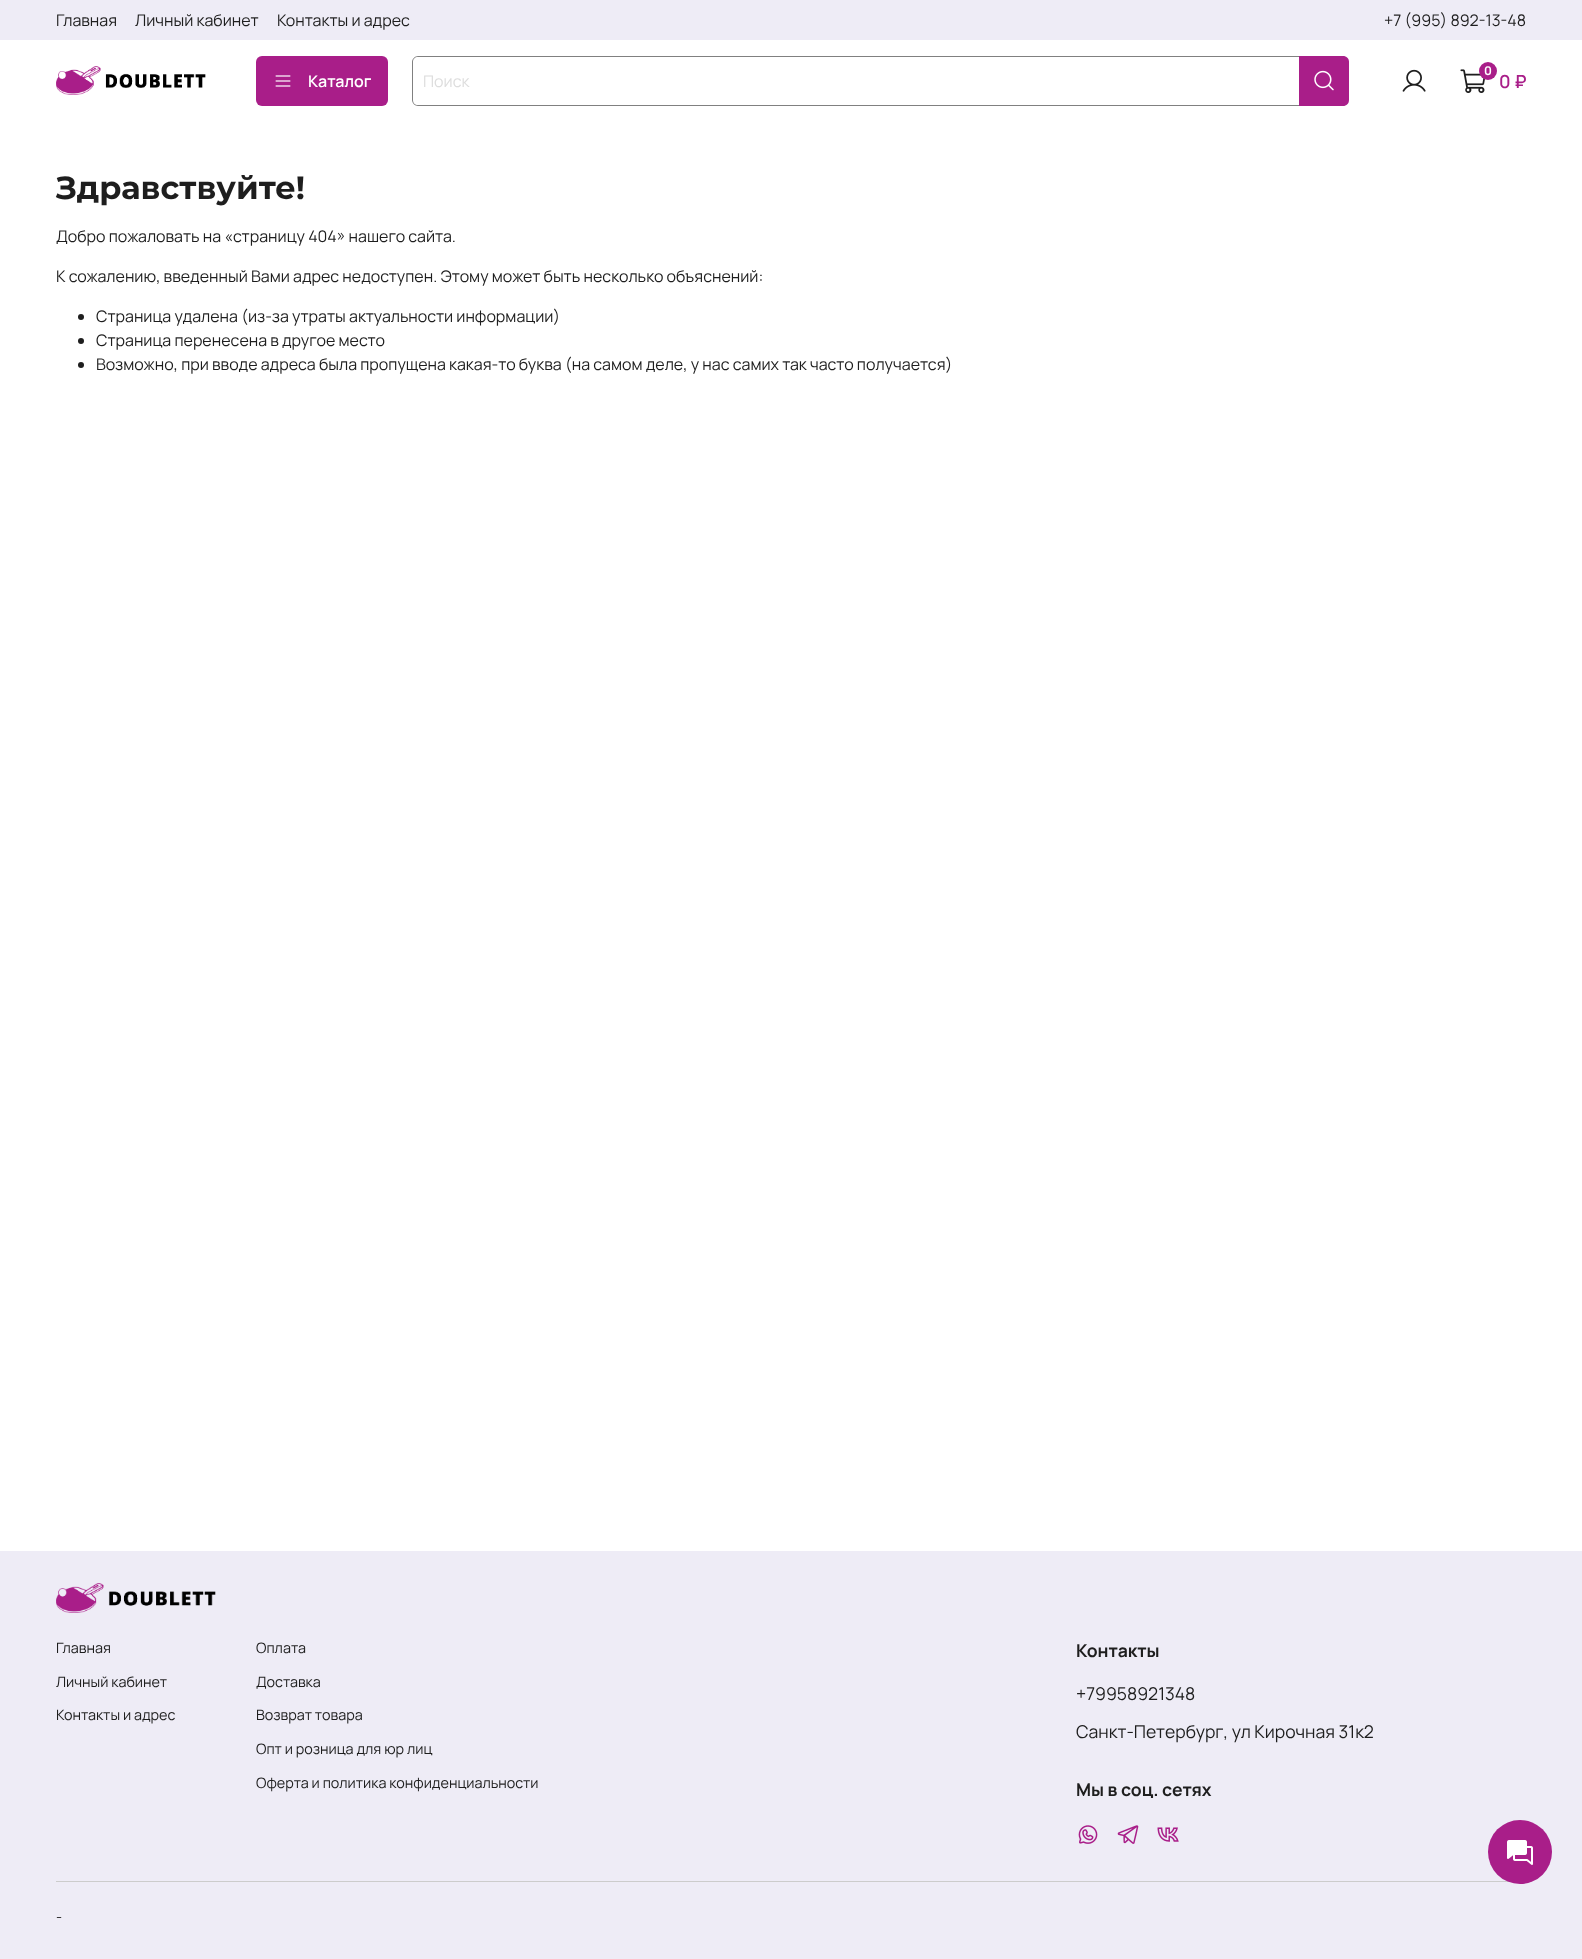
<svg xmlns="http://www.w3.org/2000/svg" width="1582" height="1959">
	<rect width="100%" height="100%" fill="#FFFFFF" />
	<rect x="0" y="0" width="1582" height="40" fill="#EEECF6" />
	<g font-family="Manrope" font-size="16" fill="#1E1E1E">
		<text x="56" y="26">Главная</text>
		<text x="135" y="26">Личный кабинет</text>
		<text x="277" y="26">Контакты и адрес</text>
		<text x="1384" y="26">+7 (995) 892-13-48</text>
	</g>
	<image x="56" y="66" width="150" height="29" href="assets/img1.png" />
	<rect x="256" y="56" width="132" height="50" rx="6" fill="#A91E89" />
	<image x="275" y="75" width="16" height="12" href="assets/img2.png" />
	<text x="308" y="87" font-family="Manrope" font-size="16" font-weight="600" fill="#FFFFFF">Каталог</text>
	<path d="M418 56H1299V106H418C415 106 412 103 412 100V62C412 59 415 56 418 56ZM418 57H1299V105H418C415 105 413 103 413 100V62C413 59 415 57 418 57Z" fill="#808080" fill-rule="evenodd" />
	<text x="423" y="87" font-family="Manrope" font-size="16" fill="#DDDDDD">Поиск</text>
	<path d="M1299 56H1343C1346.5 56 1349 58.5 1349 62V100C1349 103.5 1346.5 106 1343 106H1299Z" fill="#A91E89" />
	<image x="1314" y="70" width="20" height="21" href="assets/img3.png" />
	<image x="1402" y="69" width="24" height="23" href="assets/img4.png" />
	<image x="1460" y="69" width="25" height="24" href="assets/img5.png" />
	<circle cx="1488" cy="71" r="9" fill="#A91E89" />
	<text x="1484" y="75" font-family="Manrope" font-size="12" font-weight="700" fill="#FFFFFF">0</text>
	<text x="1499" y="88" font-family="Manrope" font-size="18" font-weight="600" fill="#A91E89">0 ₽</text>
	<text x="56" y="199" font-family="Montserrat" font-size="32" font-weight="700" fill="#1E1E1E">Здравствуйте!</text>
	<g font-family="Manrope" font-size="16" fill="#1E1E1E">
		<text x="56" y="242">Добро пожаловать на «страницу 404» нашего сайта.</text>
		<text x="56" y="282">К сожалению, введенный Вами адрес недоступен. Этому может быть несколько объяснений:</text>
	</g>
	<circle cx="81" cy="317" r="3" fill="#1E1E1E" />
	<text x="96" y="322" font-family="Manrope" font-size="16" fill="#1E1E1E">Страница удалена (из-за утраты актуальности информации)</text>
	<circle cx="81" cy="341" r="3" fill="#1E1E1E" />
	<text x="96" y="346" font-family="Manrope" font-size="16" fill="#1E1E1E">Страница перенесена в другое место</text>
	<circle cx="81" cy="365" r="3" fill="#1E1E1E" />
	<text x="96" y="370" font-family="Manrope" font-size="16" fill="#1E1E1E">Возможно, при вводе адреса была пропущена какая-то буква (на самом деле, у нас самих так часто получается)</text>
	<rect x="0" y="1551" width="1582" height="408" fill="#EEECF6" />
	<image x="56" y="1583" width="160" height="30" href="assets/img6.png" />
	<g font-family="Manrope" font-size="14.4" fill="#1E1E1E">
		<text x="56" y="1653">Главная</text>
		<text x="56" y="1687">Личный кабинет</text>
		<text x="56" y="1720">Контакты и адрес</text>
		<text x="256" y="1653">Оплата</text>
		<text x="256" y="1687">Доставка</text>
		<text x="256" y="1720">Возврат товара</text>
		<text x="256" y="1754">Опт и розница для юр лиц</text>
		<text x="256" y="1788">Оферта и политика конфиденциальности</text>
	</g>
	<text x="1076" y="1657" font-family="Manrope" font-size="17.6" font-weight="700" fill="#1E1E1E">Контакты</text>
	<g font-family="Manrope" font-size="17.6" fill="#1E1E1E">
		<text x="1076" y="1700">+79958921348</text>
		<text x="1076" y="1738">Санкт-Петербург, ул Кирочная 31к2</text>
	</g>
	<text x="1076" y="1796" font-family="Manrope" font-size="17.6" font-weight="700" fill="#1E1E1E">Мы в соц. сетях</text>
	<image x="1078" y="1825" width="20" height="19" href="assets/img7.png" />
	<image x="1117" y="1825" width="22" height="19" href="assets/img8.png" />
	<image x="1157" y="1827" width="22" height="15" href="assets/img9.png" />
	<rect x="56" y="1881" width="1453" height="1" fill="#CCCCCC" />
	<text x="56" y="1922" font-family="Manrope" font-size="14.4" fill="#1E1E1E">-</text>
	<circle cx="1520" cy="1852" r="32" fill="#A91E89" />
	<image x="1507" y="1840" width="26" height="25" href="assets/img10.png" />
</svg>
